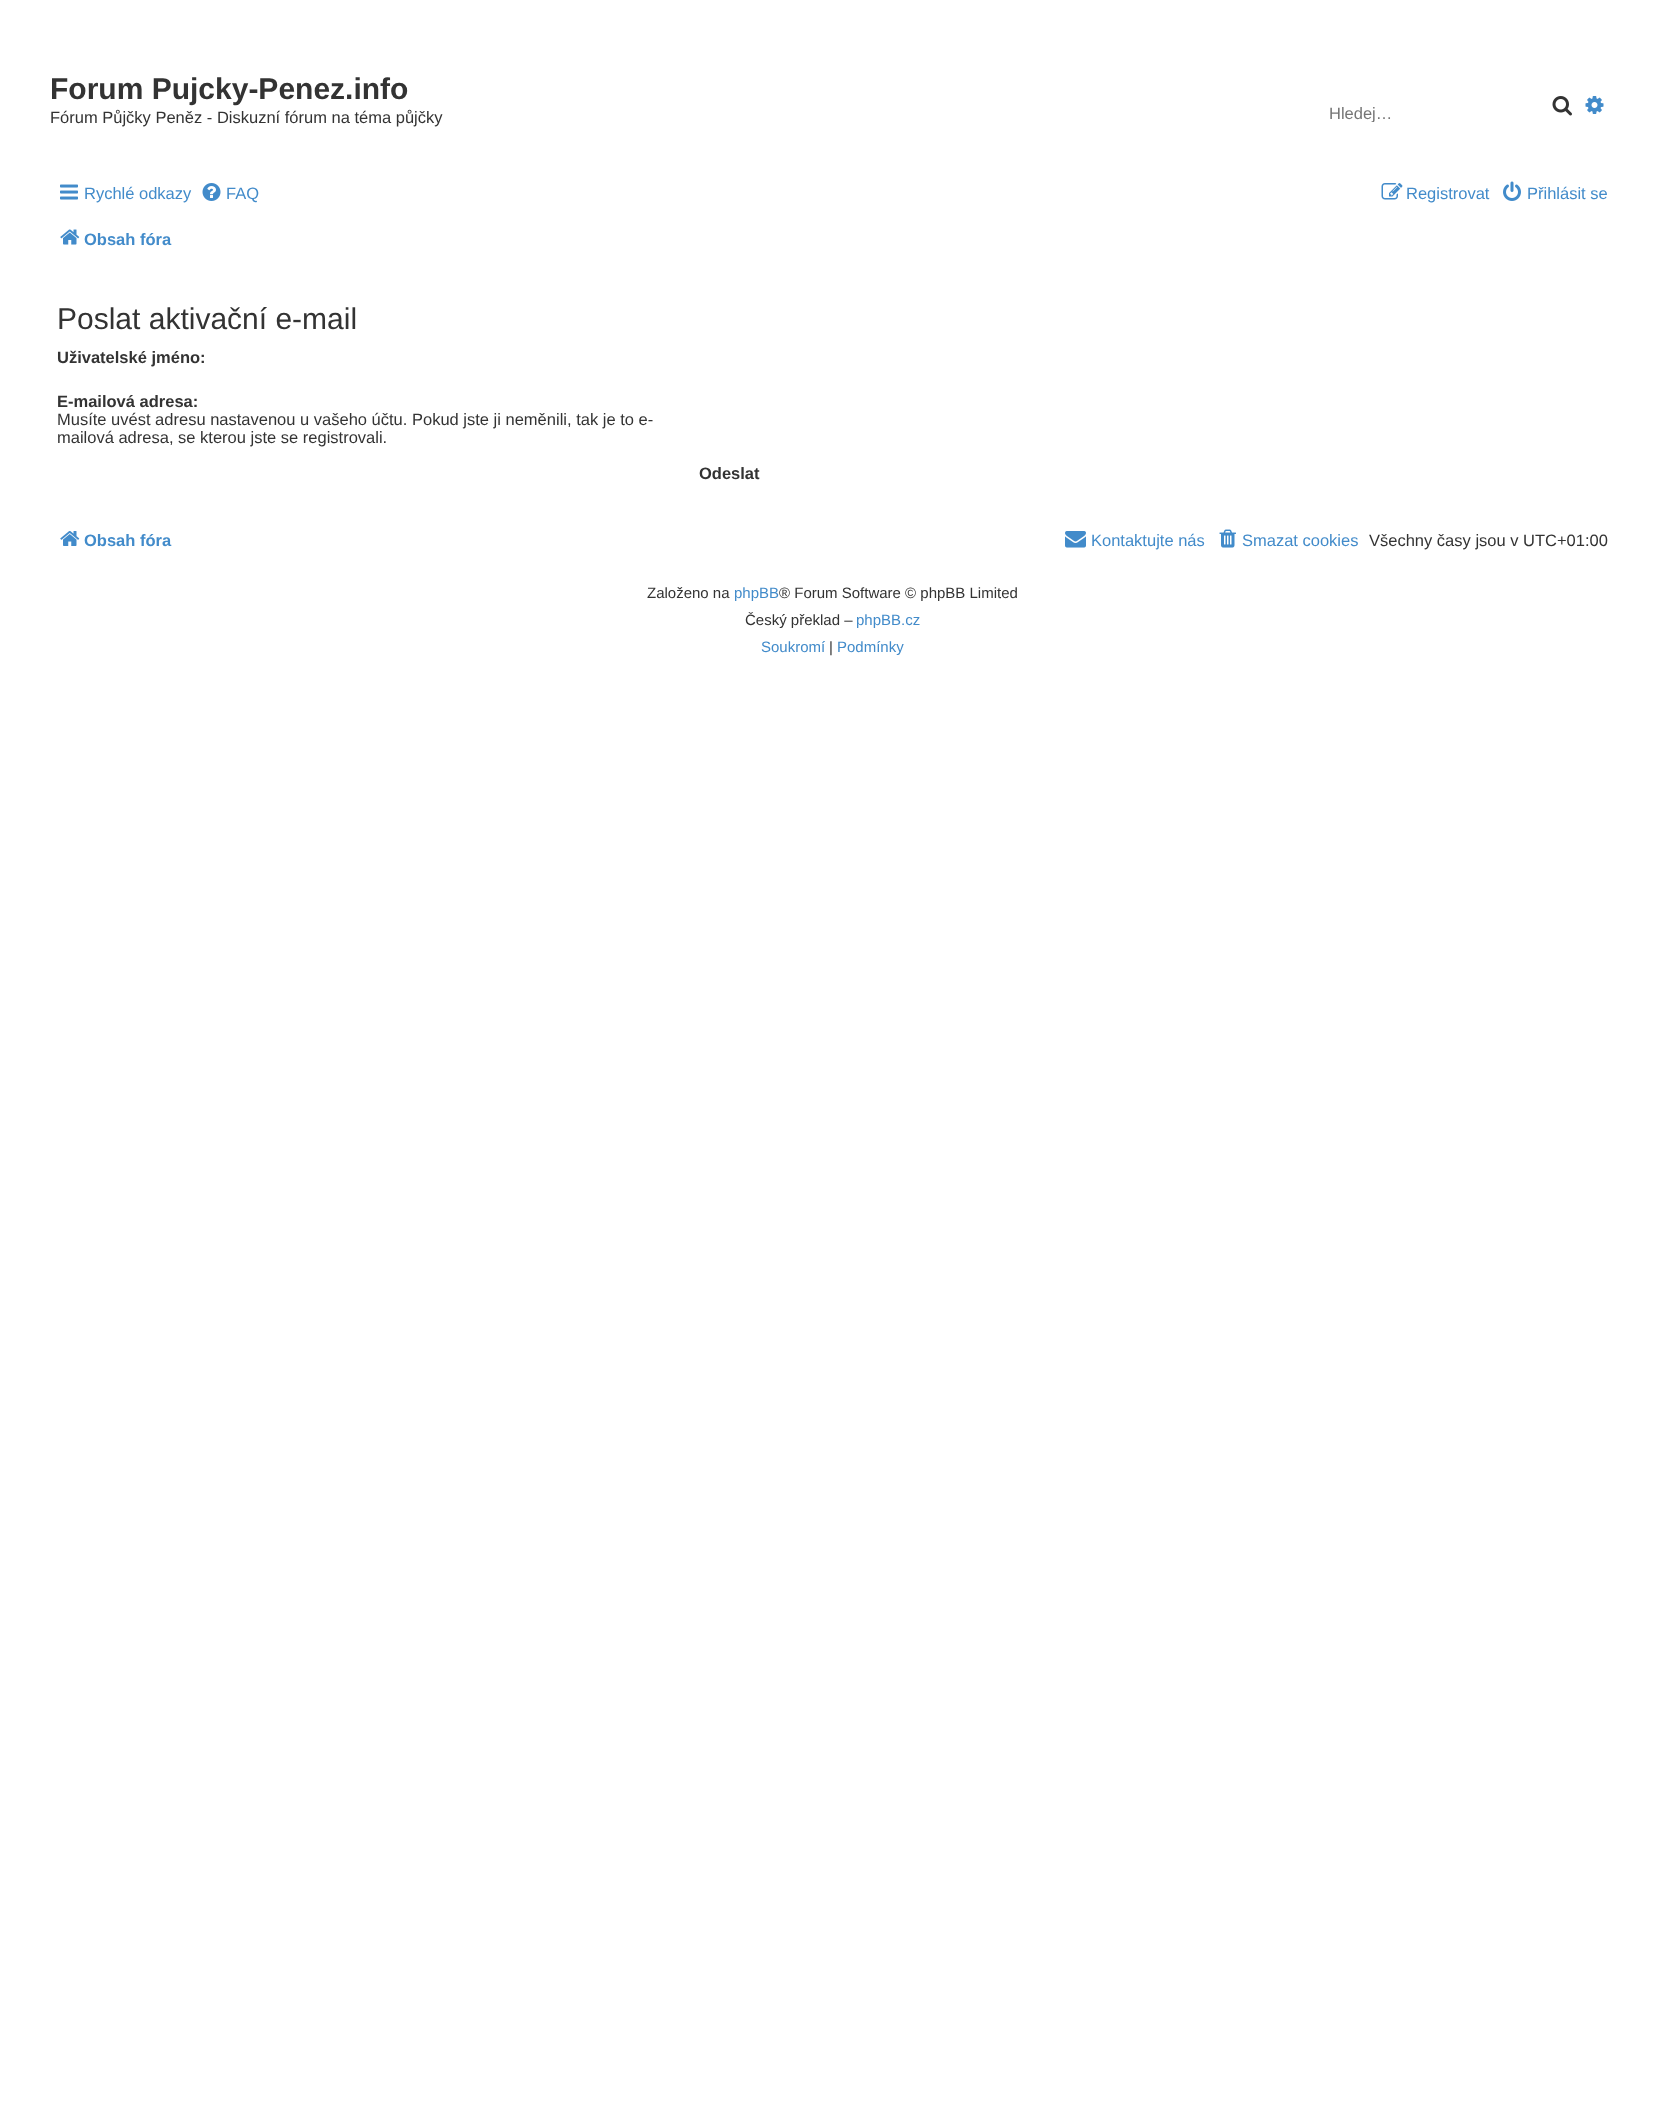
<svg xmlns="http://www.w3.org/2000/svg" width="1665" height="2108">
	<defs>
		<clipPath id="clip1"><rect x="1329" y="104" width="210" height="18" /></clipPath>
	</defs>
	<rect width="100%" height="100%" fill="#FFFFFF" />
	<text x="50" y="99" font-family="Liberation Sans" font-size="30" font-weight="700" fill="#333333">Forum Pujcky-Penez.info</text>
	<text x="50" y="123" font-family="Liberation Sans" font-size="16.5" fill="#333333">Fórum Půjčky Peněz - Diskuzní fórum na téma půjčky</text>
	<g clip-path="url(#clip1)">
		<text x="1329" y="119" font-family="Liberation Sans" font-size="16.5" fill="#757575">Hledej…</text>
	</g>
	<image x="1552" y="96" width="20" height="20" href="assets/img1.png" />
	<image x="1585" y="96" width="19" height="18" href="assets/img2.png" />
	<image x="60" y="184" width="18" height="16" href="assets/img3.png" />
	<text x="84" y="199" font-family="Liberation Sans" font-size="16.5" fill="#428BCA">Rychlé odkazy</text>
	<image x="202" y="183" width="19" height="18" href="assets/img4.png" />
	<text x="226" y="199" font-family="Liberation Sans" font-size="16.5" fill="#428BCA">FAQ</text>
	<image x="1381" y="183" width="22" height="17" href="assets/img5.png" />
	<text x="1406" y="199" font-family="Liberation Sans" font-size="16.5" fill="#428BCA">Registrovat</text>
	<image x="1503" y="181" width="18" height="20" href="assets/img6.png" />
	<text x="1527" y="199" font-family="Liberation Sans" font-size="16.5" fill="#428BCA">Přihlásit se</text>
	<image x="60" y="229" width="20" height="16" href="assets/img7.png" />
	<text x="84" y="245" font-family="Liberation Sans" font-size="16.5" font-weight="700" fill="#428BCA">Obsah fóra</text>
	<text x="57" y="329" font-family="Liberation Sans" font-size="30" fill="#333333">Poslat aktivační e-mail</text>
	<g font-family="Liberation Sans" font-size="16.5" font-weight="700" fill="#333333">
		<text x="57" y="363">Uživatelské jméno:</text>
		<text x="57" y="407">E-mailová adresa:</text>
	</g>
	<g font-family="Liberation Sans" font-size="16.5" fill="#333333">
		<text x="57" y="425">Musíte uvést adresu nastavenou u vašeho účtu. Pokud jste ji neměnili, tak je to e-</text>
		<text x="57" y="443">mailová adresa, se kterou jste se registrovali.</text>
	</g>
	<text x="699" y="479" font-family="Liberation Sans" font-size="16.5" font-weight="700" fill="#333333">Odeslat</text>
	<image x="60" y="531" width="20" height="15" href="assets/img8.png" />
	<text x="84" y="546" font-family="Liberation Sans" font-size="16.5" font-weight="700" fill="#428BCA">Obsah fóra</text>
	<image x="1065" y="531" width="21" height="17" href="assets/img9.png" />
	<text x="1091" y="546" font-family="Liberation Sans" font-size="16.5" fill="#428BCA">Kontaktujte nás</text>
	<image x="1219" y="529" width="17" height="19" href="assets/img10.png" />
	<text x="1242" y="546" font-family="Liberation Sans" font-size="16.5" fill="#428BCA">Smazat cookies</text>
	<text x="1369" y="546" font-family="Liberation Sans" font-size="16.5" fill="#333333">Všechny časy jsou v UTC+01:00</text>
	<text x="647" y="598" font-family="Liberation Sans" font-size="15" fill="#333333">Založeno na</text>
	<text x="734" y="598" font-family="Liberation Sans" font-size="15" fill="#428BCA">phpBB</text>
	<g font-family="Liberation Sans" font-size="15" fill="#333333">
		<text x="779" y="598">® Forum Software © phpBB Limited</text>
		<text x="745" y="625">Český překlad –</text>
	</g>
	<g font-family="Liberation Sans" font-size="15" fill="#428BCA">
		<text x="856" y="625">phpBB.cz</text>
		<text x="761" y="652">Soukromí</text>
	</g>
	<text x="829" y="652" font-family="Liberation Sans" font-size="15" fill="#333333">|</text>
	<text x="837" y="652" font-family="Liberation Sans" font-size="15" fill="#428BCA">Podmínky</text>
</svg>
